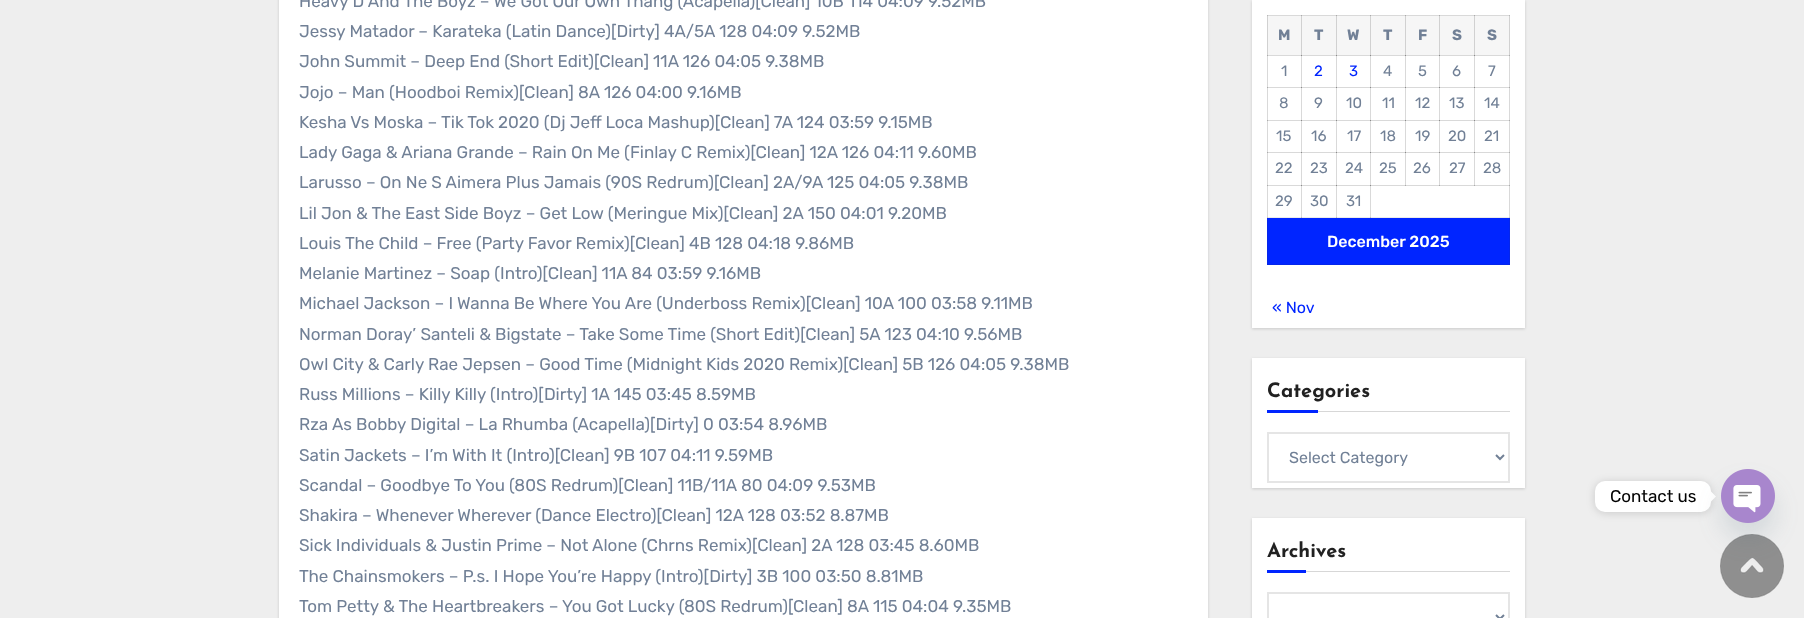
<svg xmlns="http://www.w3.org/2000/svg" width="1804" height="618">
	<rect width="100%" height="100%" fill="#EEEEEE" />
	<rect x="279" y="-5" width="929" height="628" fill="#000000" fill-opacity="0.15" filter="blur(1.5px)" />
	<rect x="279" y="0" width="929" height="618" fill="#FFFFFF" />
	<g font-family="Rubik" font-size="17" font-weight="300" fill="#718096">
		<text x="299" y="7">Heavy D And The Boyz – We Got Our Own Thang (Acapella)[Clean] 10B 114 04:09 9.52MB</text>
		<text x="299" y="37">Jessy Matador – Karateka (Latin Dance)[Dirty] 4A/5A 128 04:09 9.52MB</text>
		<text x="299" y="67">John Summit – Deep End (Short Edit)[Clean] 11A 126 04:05 9.38MB</text>
		<text x="299" y="98">Jojo – Man (Hoodboi Remix)[Clean] 8A 126 04:00 9.16MB</text>
		<text x="299" y="128">Kesha Vs Moska – Tik Tok 2020 (Dj Jeff Loca Mashup)[Clean] 7A 124 03:59 9.15MB</text>
		<text x="299" y="158">Lady Gaga &amp; Ariana Grande – Rain On Me (Finlay C Remix)[Clean] 12A 126 04:11 9.60MB</text>
		<text x="299" y="188">Larusso – On Ne S Aimera Plus Jamais (90S Redrum)[Clean] 2A/9A 125 04:05 9.38MB</text>
		<text x="299" y="219">Lil Jon &amp; The East Side Boyz – Get Low (Meringue Mix)[Clean] 2A 150 04:01 9.20MB</text>
		<text x="299" y="249">Louis The Child – Free (Party Favor Remix)[Clean] 4B 128 04:18 9.86MB</text>
		<text x="299" y="279">Melanie Martinez – Soap (Intro)[Clean] 11A 84 03:59 9.16MB</text>
		<text x="299" y="309">Michael Jackson – I Wanna Be Where You Are (Underboss Remix)[Clean] 10A 100 03:58 9.11MB</text>
		<text x="299" y="340">Norman Doray’ Santeli &amp; Bigstate – Take Some Time (Short Edit)[Clean] 5A 123 04:10 9.56MB</text>
		<text x="299" y="370">Owl City &amp; Carly Rae Jepsen – Good Time (Midnight Kids 2020 Remix)[Clean] 5B 126 04:05 9.38MB</text>
		<text x="299" y="400">Russ Millions – Killy Killy (Intro)[Dirty] 1A 145 03:45 8.59MB</text>
		<text x="299" y="430">Rza As Bobby Digital – La Rhumba (Acapella)[Dirty] 0 03:54 8.96MB</text>
		<text x="299" y="461">Satin Jackets – I’m With It (Intro)[Clean] 9B 107 04:11 9.59MB</text>
		<text x="299" y="491">Scandal – Goodbye To You (80S Redrum)[Clean] 11B/11A 80 04:09 9.53MB</text>
		<text x="299" y="521">Shakira – Whenever Wherever (Dance Electro)[Clean] 12A 128 03:52 8.87MB</text>
		<text x="299" y="551">Sick Individuals &amp; Justin Prime – Not Alone (Chrns Remix)[Clean] 2A 128 03:45 8.60MB</text>
		<text x="299" y="582">The Chainsmokers – P.s. I Hope You’re Happy (Intro)[Dirty] 3B 100 03:50 8.81MB</text>
		<text x="299" y="612">Tom Petty &amp; The Heartbreakers – You Got Lucky (80S Redrum)[Clean] 8A 115 04:04 9.35MB</text>
	</g>
	<rect x="1252" y="1" width="273" height="328" fill="#000000" fill-opacity="0.15" filter="blur(1.5px)" />
	<rect x="1252" y="0" width="273" height="328" fill="#FFFFFF" />
	<rect x="1267" y="55" width="35" height="1" fill="#D9D9D9" />
	<rect x="1301" y="55" width="1" height="33" fill="#D9D9D9" />
	<rect x="1301" y="55" width="36" height="1" fill="#D9D9D9" />
	<rect x="1301" y="55" width="1" height="1" fill="#8B8B8B" />
	<rect x="1336" y="55" width="1" height="33" fill="#D9D9D9" />
	<rect x="1336" y="55" width="35" height="1" fill="#D9D9D9" />
	<rect x="1336" y="55" width="1" height="1" fill="#8B8B8B" />
	<rect x="1370" y="55" width="1" height="33" fill="#D9D9D9" />
	<rect x="1370" y="55" width="36" height="1" fill="#D9D9D9" />
	<rect x="1370" y="55" width="1" height="1" fill="#8B8B8B" />
	<rect x="1405" y="55" width="1" height="33" fill="#D9D9D9" />
	<rect x="1405" y="55" width="35" height="1" fill="#D9D9D9" />
	<rect x="1405" y="55" width="1" height="1" fill="#8B8B8B" />
	<rect x="1439" y="55" width="1" height="33" fill="#D9D9D9" />
	<rect x="1439" y="55" width="36" height="1" fill="#D9D9D9" />
	<rect x="1439" y="55" width="1" height="1" fill="#8B8B8B" />
	<rect x="1474" y="55" width="1" height="33" fill="#D9D9D9" />
	<rect x="1474" y="55" width="36" height="1" fill="#D9D9D9" />
	<rect x="1474" y="55" width="1" height="1" fill="#8B8B8B" />
	<rect x="1267" y="87" width="35" height="1" fill="#D9D9D9" />
	<rect x="1301" y="87" width="1" height="34" fill="#D9D9D9" />
	<rect x="1301" y="87" width="36" height="1" fill="#D9D9D9" />
	<rect x="1301" y="87" width="1" height="1" fill="#8B8B8B" />
	<rect x="1336" y="87" width="1" height="34" fill="#D9D9D9" />
	<rect x="1336" y="87" width="35" height="1" fill="#D9D9D9" />
	<rect x="1336" y="87" width="1" height="1" fill="#8B8B8B" />
	<rect x="1370" y="87" width="1" height="34" fill="#D9D9D9" />
	<rect x="1370" y="87" width="36" height="1" fill="#D9D9D9" />
	<rect x="1370" y="87" width="1" height="1" fill="#8B8B8B" />
	<rect x="1405" y="87" width="1" height="34" fill="#D9D9D9" />
	<rect x="1405" y="87" width="35" height="1" fill="#D9D9D9" />
	<rect x="1405" y="87" width="1" height="1" fill="#8B8B8B" />
	<rect x="1439" y="87" width="1" height="34" fill="#D9D9D9" />
	<rect x="1439" y="87" width="36" height="1" fill="#D9D9D9" />
	<rect x="1439" y="87" width="1" height="1" fill="#8B8B8B" />
	<rect x="1474" y="87" width="1" height="34" fill="#D9D9D9" />
	<rect x="1474" y="87" width="36" height="1" fill="#D9D9D9" />
	<rect x="1474" y="87" width="1" height="1" fill="#8B8B8B" />
	<rect x="1267" y="120" width="35" height="1" fill="#D9D9D9" />
	<rect x="1301" y="120" width="1" height="33" fill="#D9D9D9" />
	<rect x="1301" y="120" width="36" height="1" fill="#D9D9D9" />
	<rect x="1301" y="120" width="1" height="1" fill="#8B8B8B" />
	<rect x="1336" y="120" width="1" height="33" fill="#D9D9D9" />
	<rect x="1336" y="120" width="35" height="1" fill="#D9D9D9" />
	<rect x="1336" y="120" width="1" height="1" fill="#8B8B8B" />
	<rect x="1370" y="120" width="1" height="33" fill="#D9D9D9" />
	<rect x="1370" y="120" width="36" height="1" fill="#D9D9D9" />
	<rect x="1370" y="120" width="1" height="1" fill="#8B8B8B" />
	<rect x="1405" y="120" width="1" height="33" fill="#D9D9D9" />
	<rect x="1405" y="120" width="35" height="1" fill="#D9D9D9" />
	<rect x="1405" y="120" width="1" height="1" fill="#8B8B8B" />
	<rect x="1439" y="120" width="1" height="33" fill="#D9D9D9" />
	<rect x="1439" y="120" width="36" height="1" fill="#D9D9D9" />
	<rect x="1439" y="120" width="1" height="1" fill="#8B8B8B" />
	<rect x="1474" y="120" width="1" height="33" fill="#D9D9D9" />
	<rect x="1474" y="120" width="36" height="1" fill="#D9D9D9" />
	<rect x="1474" y="120" width="1" height="1" fill="#8B8B8B" />
	<rect x="1267" y="152" width="35" height="1" fill="#D9D9D9" />
	<rect x="1301" y="152" width="1" height="34" fill="#D9D9D9" />
	<rect x="1301" y="152" width="36" height="1" fill="#D9D9D9" />
	<rect x="1301" y="152" width="1" height="1" fill="#8B8B8B" />
	<rect x="1336" y="152" width="1" height="34" fill="#D9D9D9" />
	<rect x="1336" y="152" width="35" height="1" fill="#D9D9D9" />
	<rect x="1336" y="152" width="1" height="1" fill="#8B8B8B" />
	<rect x="1370" y="152" width="1" height="34" fill="#D9D9D9" />
	<rect x="1370" y="152" width="36" height="1" fill="#D9D9D9" />
	<rect x="1370" y="152" width="1" height="1" fill="#8B8B8B" />
	<rect x="1405" y="152" width="1" height="34" fill="#D9D9D9" />
	<rect x="1405" y="152" width="35" height="1" fill="#D9D9D9" />
	<rect x="1405" y="152" width="1" height="1" fill="#8B8B8B" />
	<rect x="1439" y="152" width="1" height="34" fill="#D9D9D9" />
	<rect x="1439" y="152" width="36" height="1" fill="#D9D9D9" />
	<rect x="1439" y="152" width="1" height="1" fill="#8B8B8B" />
	<rect x="1474" y="152" width="1" height="34" fill="#D9D9D9" />
	<rect x="1474" y="152" width="36" height="1" fill="#D9D9D9" />
	<rect x="1474" y="152" width="1" height="1" fill="#8B8B8B" />
	<rect x="1267" y="217" width="35" height="1" fill="#EBEBEB" />
	<rect x="1267" y="185" width="35" height="1" fill="#D9D9D9" />
	<rect x="1301" y="185" width="1" height="33" fill="#D9D9D9" />
	<rect x="1301" y="217" width="36" height="1" fill="#EBEBEB" />
	<rect x="1301" y="217" width="1" height="1" fill="#B9B9B9" />
	<rect x="1301" y="185" width="36" height="1" fill="#D9D9D9" />
	<rect x="1301" y="185" width="1" height="1" fill="#8B8B8B" />
	<rect x="1336" y="185" width="1" height="33" fill="#D9D9D9" />
	<rect x="1336" y="217" width="35" height="1" fill="#EBEBEB" />
	<rect x="1336" y="217" width="1" height="1" fill="#B9B9B9" />
	<rect x="1336" y="185" width="35" height="1" fill="#D9D9D9" />
	<rect x="1336" y="185" width="1" height="1" fill="#8B8B8B" />
	<rect x="1370" y="185" width="1" height="33" fill="#D9D9D9" />
	<rect x="1370" y="217" width="140" height="1" fill="#EBEBEB" />
	<rect x="1370" y="217" width="1" height="1" fill="#B9B9B9" />
	<rect x="1370" y="185" width="140" height="1" fill="#D9D9D9" />
	<rect x="1405" y="185" width="1" height="1" fill="#ACACAC" />
	<rect x="1439" y="185" width="1" height="1" fill="#ACACAC" />
	<rect x="1474" y="185" width="1" height="1" fill="#ACACAC" />
	<rect x="1370" y="185" width="1" height="1" fill="#8B8B8B" />
	<rect x="1267" y="55" width="1" height="163" fill="#D9D9D9" />
	<rect x="1267" y="55" width="1" height="1" fill="#ACACAC" />
	<rect x="1267" y="87" width="1" height="1" fill="#ACACAC" />
	<rect x="1267" y="120" width="1" height="1" fill="#ACACAC" />
	<rect x="1267" y="152" width="1" height="1" fill="#ACACAC" />
	<rect x="1267" y="217" width="1" height="1" fill="#C8C8C8" />
	<rect x="1267" y="185" width="1" height="1" fill="#ACACAC" />
	<rect x="1509" y="55" width="1" height="163" fill="#D9D9D9" />
	<rect x="1509" y="55" width="1" height="1" fill="#ACACAC" />
	<rect x="1509" y="87" width="1" height="1" fill="#ACACAC" />
	<rect x="1509" y="120" width="1" height="1" fill="#ACACAC" />
	<rect x="1509" y="152" width="1" height="1" fill="#ACACAC" />
	<rect x="1509" y="217" width="1" height="1" fill="#C8C8C8" />
	<rect x="1509" y="185" width="1" height="1" fill="#ACACAC" />
	<rect x="1267" y="15" width="243" height="1" fill="#D9D9D9" />
	<rect x="1301" y="15" width="1" height="1" fill="#ACACAC" />
	<rect x="1336" y="15" width="1" height="1" fill="#ACACAC" />
	<rect x="1370" y="15" width="1" height="1" fill="#ACACAC" />
	<rect x="1405" y="15" width="1" height="1" fill="#ACACAC" />
	<rect x="1439" y="15" width="1" height="1" fill="#ACACAC" />
	<rect x="1474" y="15" width="1" height="1" fill="#ACACAC" />
	<rect x="1267" y="15" width="1" height="1" fill="#B9B9B9" />
	<rect x="1509" y="15" width="1" height="1" fill="#B9B9B9" />
	<rect x="1268" y="16" width="33" height="39" fill="#F6F6F6" />
	<rect x="1267" y="16" width="1" height="39" fill="#D1D1D1" />
	<text x="1278" y="40" font-family="Rubik" font-size="15" font-weight="700" fill="#718096">M</text>
	<rect x="1302" y="16" width="34" height="39" fill="#F6F6F6" />
	<rect x="1301" y="16" width="1" height="39" fill="#D1D1D1" />
	<text x="1314" y="40" font-family="Rubik" font-size="15" font-weight="700" fill="#718096">T</text>
	<rect x="1337" y="16" width="33" height="39" fill="#F6F6F6" />
	<rect x="1336" y="16" width="1" height="39" fill="#D1D1D1" />
	<rect x="1370" y="16" width="1" height="39" fill="#D1D1D1" />
	<text x="1347" y="40" font-family="Rubik" font-size="15" font-weight="700" fill="#718096">W</text>
	<rect x="1371" y="16" width="34" height="39" fill="#F6F6F6" />
	<text x="1383" y="40" font-family="Rubik" font-size="15" font-weight="700" fill="#718096">T</text>
	<rect x="1406" y="16" width="33" height="39" fill="#F6F6F6" />
	<rect x="1405" y="16" width="1" height="39" fill="#D1D1D1" />
	<rect x="1439" y="16" width="1" height="39" fill="#D1D1D1" />
	<text x="1418" y="40" font-family="Rubik" font-size="15" font-weight="700" fill="#718096">F</text>
	<rect x="1440" y="16" width="34" height="39" fill="#F6F6F6" />
	<text x="1452" y="40" font-family="Rubik" font-size="15" font-weight="700" fill="#718096">S</text>
	<rect x="1475" y="16" width="34" height="39" fill="#F6F6F6" />
	<rect x="1474" y="16" width="1" height="39" fill="#D1D1D1" />
	<rect x="1509" y="16" width="1" height="39" fill="#D1D1D1" />
	<text x="1487" y="40" font-family="Rubik" font-size="15" font-weight="700" fill="#718096">S</text>
	<text x="1281" y="76" font-family="Rubik" font-size="15" font-weight="300" fill="#718096">1</text>
	<g font-family="Rubik" font-size="15" font-weight="300" fill="#0025FF">
		<text x="1314" y="76">2</text>
		<text x="1349" y="76">3</text>
	</g>
	<g font-family="Rubik" font-size="15" font-weight="300" fill="#718096">
		<text x="1383" y="76">4</text>
		<text x="1418" y="76">5</text>
		<text x="1452" y="76">6</text>
		<text x="1488" y="76">7</text>
		<text x="1279" y="108">8</text>
		<text x="1314" y="108">9</text>
		<text x="1346" y="108">10</text>
		<text x="1382" y="108">11</text>
		<text x="1415" y="108">12</text>
		<text x="1449" y="108">13</text>
		<text x="1484" y="108">14</text>
		<text x="1276" y="141">15</text>
		<text x="1311" y="141">16</text>
		<text x="1347" y="141">17</text>
		<text x="1380" y="141">18</text>
		<text x="1415" y="141">19</text>
		<text x="1448" y="141">20</text>
		<text x="1484" y="141">21</text>
		<text x="1275" y="173">22</text>
		<text x="1310" y="173">23</text>
		<text x="1345" y="173">24</text>
		<text x="1379" y="173">25</text>
		<text x="1413" y="173">26</text>
		<text x="1449" y="173">27</text>
		<text x="1483" y="173">28</text>
		<text x="1275" y="206">29</text>
		<text x="1310" y="206">30</text>
		<text x="1346" y="206">31</text>
	</g>
	<rect x="1268" y="218" width="241" height="46" fill="#0025FF" />
	<rect x="1267" y="218" width="1" height="47" fill="#0526EB" />
	<rect x="1267" y="264" width="243" height="1" fill="#0526EB" />
	<rect x="1267" y="264" width="1" height="1" fill="#0A27D9" />
	<rect x="1509" y="218" width="1" height="47" fill="#0526EB" />
	<rect x="1509" y="264" width="1" height="1" fill="#0A27D9" />
	<text x="1327" y="247" font-family="Rubik" font-size="16" font-weight="500" fill="#FFFFFF">December 2025</text>
	<text x="1272" y="313" font-family="Rubik" font-size="16" font-weight="300" fill="#0025FF">« Nov</text>
	<rect x="1252" y="359" width="273" height="130" fill="#000000" fill-opacity="0.15" filter="blur(1.5px)" />
	<rect x="1252" y="358" width="273" height="130" fill="#FFFFFF" />
	<rect x="1318" y="411" width="192" height="1" fill="#D7D7D7" />
	<text x="1267" y="397" font-family="Josefin Sans" font-size="20" font-weight="700" fill="#212121">Categories</text>
	<rect x="1267" y="410" width="51" height="3" fill="#0025FF" />
	<rect x="1268" y="433" width="241" height="49" fill="none" stroke="#E5E5E5" stroke-width="2" />
	<path d="M1496 455L1500 459L1504 455" fill="none" stroke="#718096" stroke-width="2" />
	<text x="1289" y="463" font-family="Rubik" font-size="16" font-weight="300" fill="#718096">Select Category</text>
	<rect x="1252" y="519" width="273" height="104" fill="#000000" fill-opacity="0.15" filter="blur(1.5px)" />
	<rect x="1252" y="518" width="273" height="100" fill="#FFFFFF" />
	<rect x="1306" y="571" width="204" height="1" fill="#D7D7D7" />
	<text x="1267" y="557" font-family="Josefin Sans" font-size="20" font-weight="700" fill="#212121">Archives</text>
	<rect x="1267" y="570" width="39" height="3" fill="#0025FF" />
	<rect x="1268" y="593" width="241" height="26" fill="none" stroke="#E5E5E5" stroke-width="2" />
	<path d="M1496 615L1500 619L1504 615" fill="none" stroke="#718096" stroke-width="2" />
	<rect x="1595" y="482" width="116" height="31" rx="10" fill="#000000" fill-opacity="0.15" filter="blur(4px)" />
	<rect x="1595" y="481" width="116" height="31" rx="10" fill="#FFFFFF" />
	<text x="1610" y="502" font-family="Rubik" font-size="17" font-weight="300" fill="#000000">Contact us</text>
	<path d="M1711 501.5V491.5L1716 496.5Z" fill="#FFFFFF" />
	<image x="1720" y="534" width="64" height="64" href="assets/img2.png" />
	<rect x="1721" y="485" width="54" height="54" rx="27" fill="#49687E" fill-opacity="0.16" filter="blur(12px)" />
	<image x="1721" y="469" width="54" height="54" href="assets/img1.png" />
</svg>
